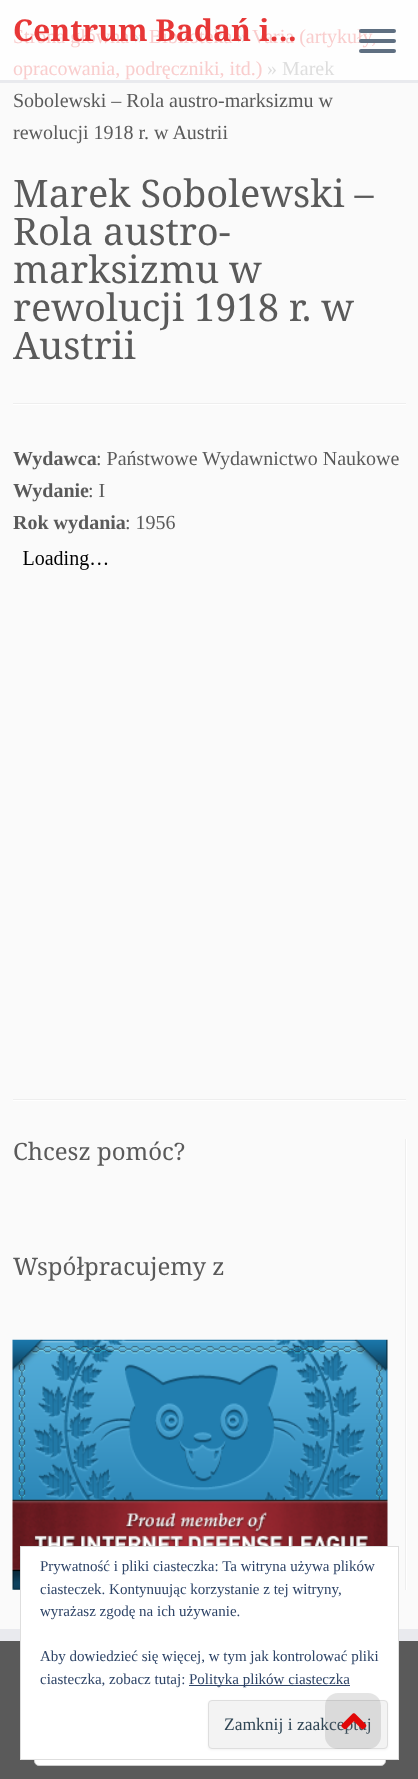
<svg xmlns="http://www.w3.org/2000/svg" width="418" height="1779">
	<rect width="100%" height="100%" fill="#FAFAFA" />
	<rect x="0" y="0" width="418" height="80" fill="#FEFEFE" />
	<rect x="0" y="80" width="418" height="3" fill="#E9EAEE" />
	<text x="13" y="43" font-family="Liberation Serif" font-size="20" fill="#F9CDCD">Strona główna</text>
	<text x="134" y="43" font-family="Liberation Serif" font-size="20" fill="#DEDEDE">»</text>
	<text x="149" y="43" font-family="Liberation Serif" font-size="20" fill="#F9CDCD">Biblioteka</text>
	<text x="237" y="43" font-family="Liberation Serif" font-size="20" fill="#DEDEDE">»</text>
	<text x="252" y="43" font-family="Liberation Serif" font-size="20" fill="#F9CDCD">Varia (artykuły,</text>
	<text x="13" y="41" font-family="Noto Serif" font-size="30" font-weight="700" fill="#E73737">Centrum Badań i…</text>
	<rect x="359" y="29" width="37" height="4" rx="2" fill="#5F6F81" />
	<rect x="359" y="39" width="37" height="4" rx="2" fill="#5F6F81" />
	<rect x="359" y="49" width="37" height="4" rx="2" fill="#5F6F81" />
	<text x="13" y="75" font-family="Liberation Serif" font-size="20" fill="#F9CDCD">opracowania, podręczniki, itd.)</text>
	<text x="267" y="75" font-family="Liberation Serif" font-size="20" fill="#DEDEDE">» Marek</text>
	<g font-family="Liberation Serif" font-size="20" fill="#5A5A5A">
		<text x="13" y="107">Sobolewski – Rola austro-marksizmu w</text>
		<text x="13" y="139">rewolucji 1918 r. w Austrii</text>
	</g>
	<g font-family="Noto Serif" font-size="38" fill="#5A5A5A">
		<text x="13" y="207">Marek Sobolewski –</text>
		<text x="13" y="245">Rola austro-</text>
		<text x="13" y="283">marksizmu w</text>
		<text x="13" y="321">rewolucji 1918 r. w</text>
		<text x="13" y="359">Austrii</text>
	</g>
	<rect x="13" y="403" width="393" height="1" fill="#EEEEEE" />
	<rect x="13" y="404" width="393" height="1" fill="#FFFFFF" />
	<text x="13" y="465" font-family="Liberation Serif" font-size="20" font-weight="700" fill="#5A5A5A">Wydawca</text>
	<text x="96" y="465" font-family="Liberation Serif" font-size="20" fill="#5A5A5A">: Państwowe Wydawnictwo Naukowe</text>
	<text x="13" y="497" font-family="Liberation Serif" font-size="20" font-weight="700" fill="#5A5A5A">Wydanie</text>
	<text x="88" y="497" font-family="Liberation Serif" font-size="20" fill="#5A5A5A">: I</text>
	<text x="13" y="529" font-family="Liberation Serif" font-size="20" font-weight="700" fill="#5A5A5A">Rok wydania</text>
	<text x="125" y="529" font-family="Liberation Serif" font-size="20" fill="#5A5A5A">: 1956</text>
	<image x="23" y="551" width="85" height="19" href="assets/img1.png" />
	<rect x="13" y="1099" width="393" height="1" fill="#EEEEEE" />
	<rect x="13" y="1100" width="393" height="1" fill="#FFFFFF" />
	<rect x="405" y="1139" width="1" height="451" fill="#EEEEEE" />
	<text x="13" y="1160" font-family="Noto Serif" font-size="24" fill="#5A5A5A">Chcesz pomóc?</text>
	<rect x="406" y="1139" width="1" height="451" fill="#FFFFFF" />
	<text x="13" y="1275" font-family="Noto Serif" font-size="24" fill="#5A5A5A">Współpracujemy z</text>
	<image x="12" y="1339" width="376" height="251" href="assets/img2.png" />
	<rect x="0" y="1641" width="418" height="138" fill="#5A5A5A" />
	<rect x="0" y="1629" width="418" height="12" fill="#E9EAEE" />
	<rect x="34.5" y="1726.5" width="351" height="39" rx="4.5" fill="#FFFFFF" stroke="#CCCCCC" />
	<rect x="20.5" y="1546.5" width="378" height="213" fill="#FFFFFF" stroke="#DEDEDE" />
	<g font-family="Liberation Serif" font-size="15" fill="#2E4467">
		<text x="40" y="1571">Prywatność i pliki ciasteczka: Ta witryna używa plików</text>
		<text x="40" y="1594">ciasteczek. Kontynuując korzystanie z tej witryny,</text>
		<text x="40" y="1616">wyrażasz zgodę na ich używanie.</text>
		<text x="40" y="1661">Aby dowiedzieć się więcej, w tym jak kontrolować pliki</text>
		<text x="40" y="1684">ciasteczka, zobacz tutaj:</text>
	</g>
	<rect x="189" y="1685" width="161" height="1" fill="#2E4467" />
	<text x="189" y="1684" font-family="Liberation Serif" font-size="15" fill="#2E4467">Polityka plików ciasteczka</text>
	<rect x="208" y="1701" width="180" height="49" rx="4" fill="#000000" fill-opacity="0.05" filter="blur(1px)" />
	<rect x="208.5" y="1700.5" width="179" height="48" rx="3.5" fill="#F3F3F3" stroke="#DEDEDE" />
	<text x="224" y="1730" font-family="Liberation Serif" font-size="17.5" fill="#2E4453">Zamknij i zaakceptuj</text>
	<rect x="325" y="1693" width="56" height="56" rx="13" fill="#777777" fill-opacity="0.2" />
	<image x="341" y="1713" width="26" height="17" href="assets/img3.png" />
</svg>
